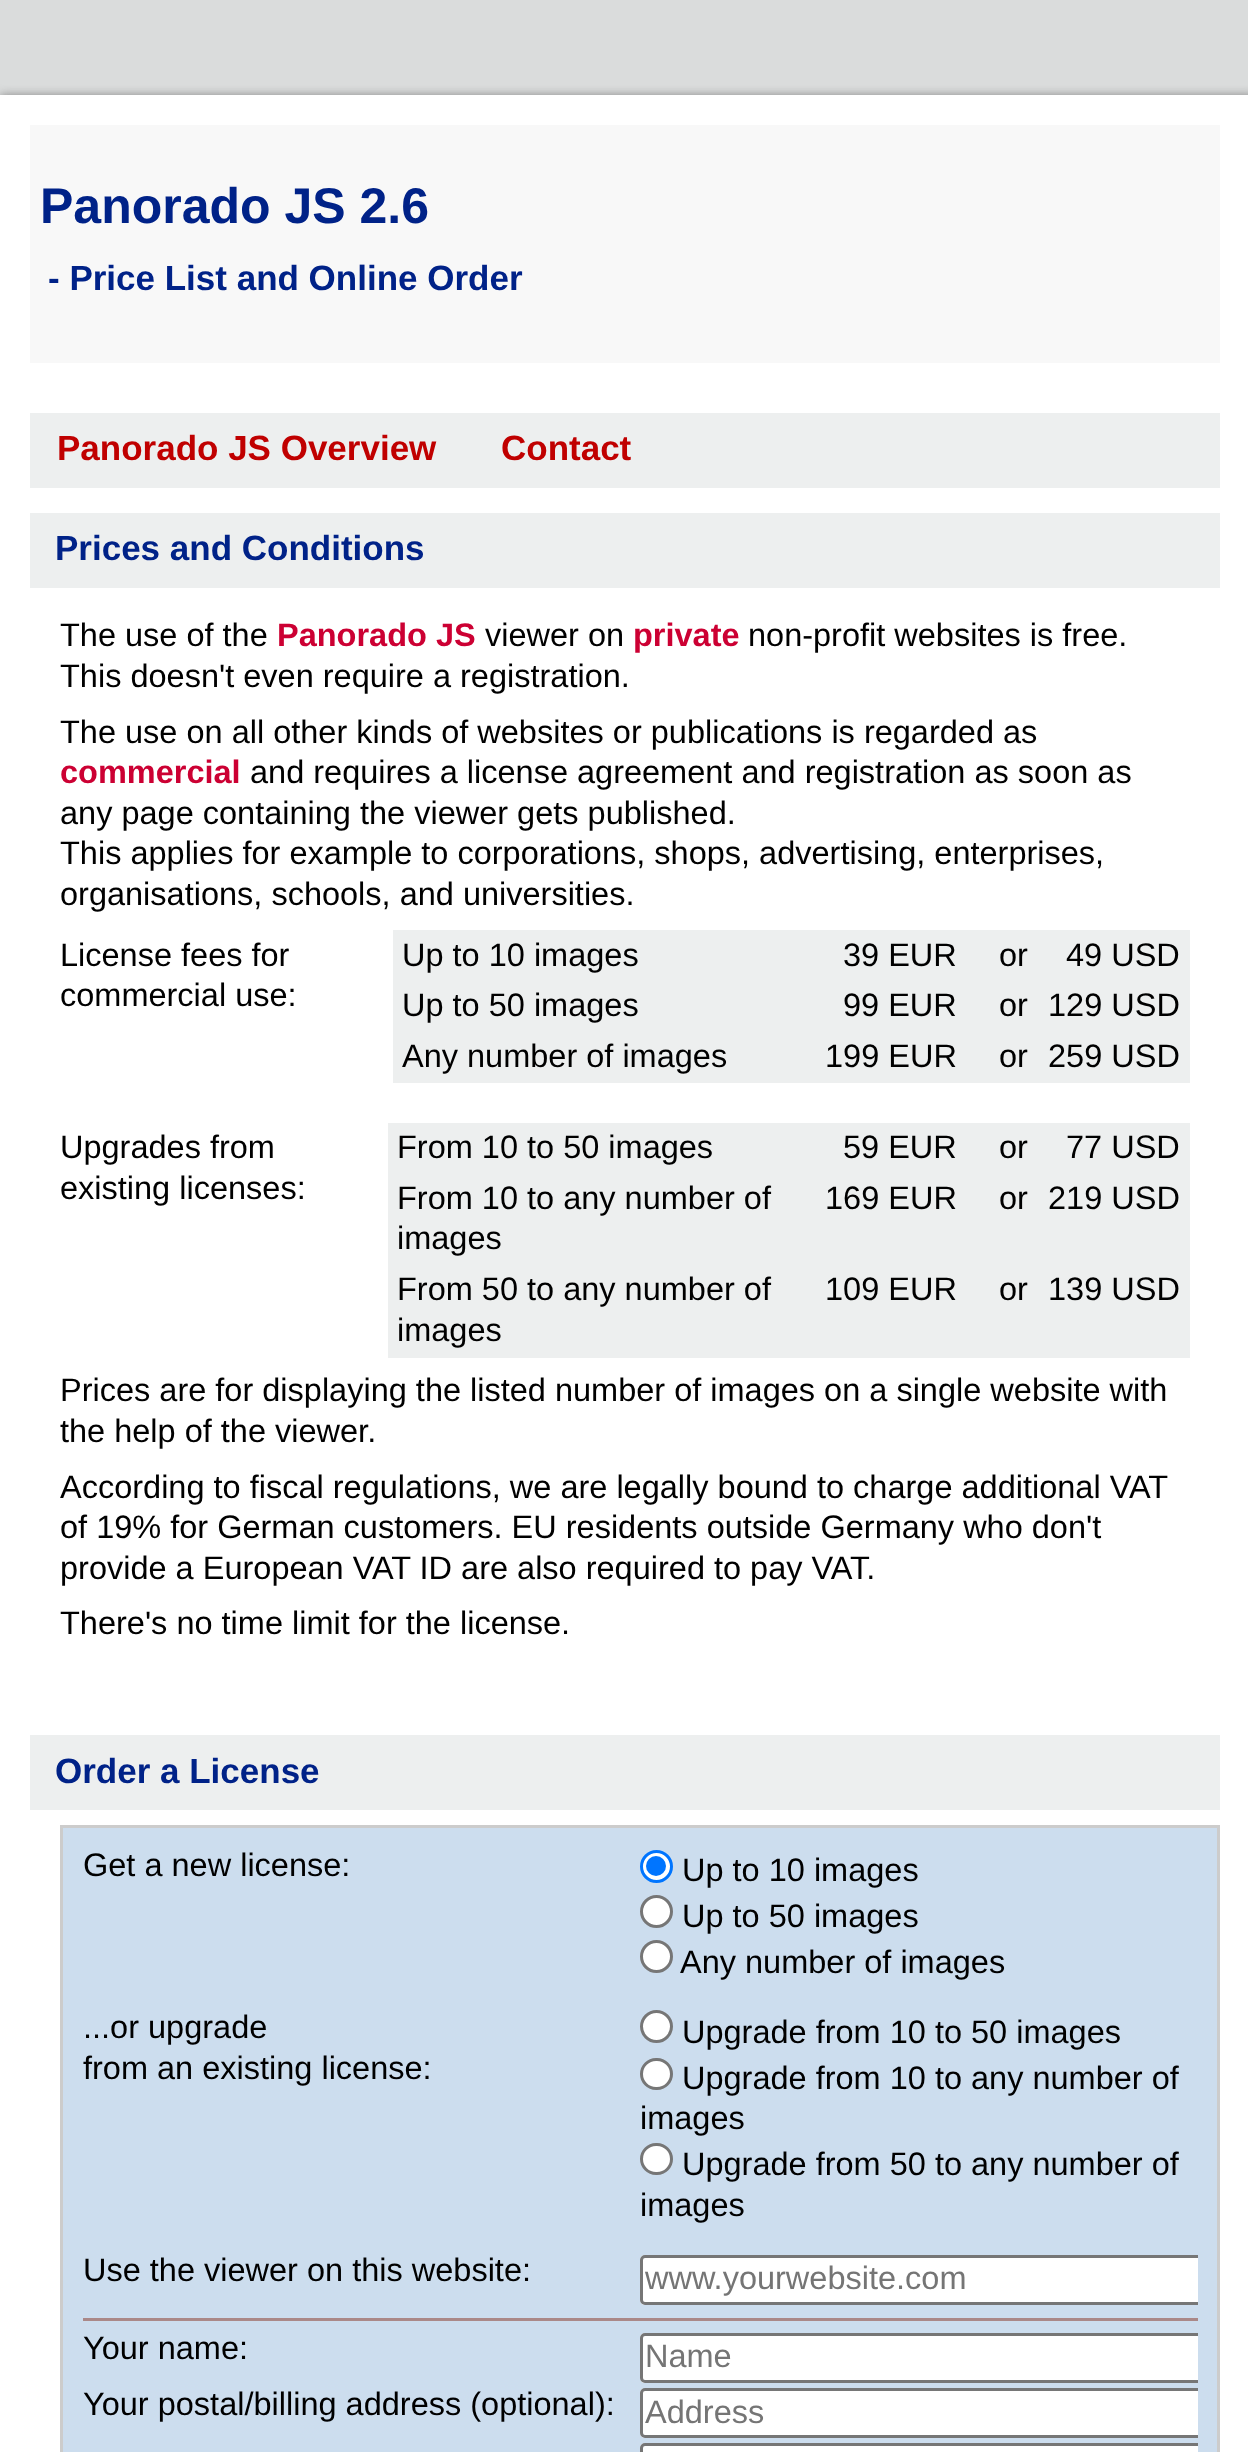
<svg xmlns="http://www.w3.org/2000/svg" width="1248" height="2452">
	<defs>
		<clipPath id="clip1"><rect x="83" y="1848" width="1115" height="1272" /></clipPath>
	</defs>
	<rect width="100%" height="100%" fill="#DADCDC" />
	<rect x="0" y="95" width="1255" height="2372" fill="#888888" filter="blur(5px)" />
	<rect x="0" y="95" width="1248" height="2357" fill="#FFFFFF" />
	<rect x="30" y="125" width="1190" height="238" fill="#F8F8F8" />
	<text x="40" y="223" font-family="Liberation Sans" font-size="50" font-weight="700" fill="#002288">Panorado JS 2.6</text>
	<text x="48" y="290" font-family="Liberation Sans" font-size="35" font-weight="700" fill="#002288">- Price List and Online Order</text>
	<rect x="30" y="413" width="1190" height="75" fill="#EDEFEF" />
	<g font-family="Liberation Sans" font-size="35" font-weight="700" fill="#C00000">
		<text x="57" y="460">Panorado JS Overview</text>
		<text x="501" y="460">Contact</text>
	</g>
	<rect x="30" y="513" width="1190" height="75" fill="#EDEFEF" />
	<text x="55" y="560" font-family="Liberation Sans" font-size="35" font-weight="700" fill="#002288">Prices and Conditions</text>
	<text x="60" y="646" font-family="Liberation Sans" font-size="32.5" fill="#000000">The use of the</text>
	<text x="277" y="646" font-family="Liberation Sans" font-size="32.5" font-weight="700" fill="#CC0033">Panorado JS</text>
	<text x="485" y="646" font-family="Liberation Sans" font-size="32.5" fill="#000000">viewer on</text>
	<text x="633" y="646" font-family="Liberation Sans" font-size="32.5" font-weight="700" fill="#CC0033">private</text>
	<g font-family="Liberation Sans" font-size="32.5" fill="#000000">
		<text x="748" y="646">non-profit websites is free.</text>
		<text x="60" y="687">This doesn't even require a registration.</text>
		<text x="60" y="743">The use on all other kinds of websites or publications is regarded as</text>
	</g>
	<text x="60" y="783" font-family="Liberation Sans" font-size="32.5" font-weight="700" fill="#CC0033">commercial</text>
	<g font-family="Liberation Sans" font-size="32.5" fill="#000000">
		<text x="250" y="783">and requires a license agreement and registration as soon as</text>
		<text x="60" y="824">any page containing the viewer gets published.</text>
		<text x="60" y="864">This applies for example to corporations, shops, advertising, enterprises,</text>
		<text x="60" y="905">organisations, schools, and universities.</text>
		<text x="60" y="966">License fees for</text>
		<text x="60" y="1006">commercial use:</text>
	</g>
	<rect x="393" y="930" width="797" height="53" fill="#EDEFEF" />
	<g font-family="Liberation Sans" font-size="32.5" fill="#000000">
		<text x="402" y="966">Up to 10 images</text>
		<text x="843" y="966">39 EUR</text>
		<text x="999" y="966">or</text>
		<text x="1066" y="966">49 USD</text>
	</g>
	<rect x="393" y="983" width="797" height="50" fill="#EDEFEF" />
	<g font-family="Liberation Sans" font-size="32.5" fill="#000000">
		<text x="402" y="1016">Up to 50 images</text>
		<text x="843" y="1016">99 EUR</text>
		<text x="999" y="1016">or</text>
		<text x="1048" y="1016">129 USD</text>
	</g>
	<rect x="393" y="1033" width="797" height="50" fill="#EDEFEF" />
	<g font-family="Liberation Sans" font-size="32.5" fill="#000000">
		<text x="402" y="1067">Any number of images</text>
		<text x="825" y="1067">199 EUR</text>
		<text x="999" y="1067">or</text>
		<text x="1048" y="1067">259 USD</text>
		<text x="60" y="1158">Upgrades from</text>
		<text x="60" y="1199">existing licenses:</text>
	</g>
	<rect x="388" y="1123" width="802" height="52" fill="#EDEFEF" />
	<g font-family="Liberation Sans" font-size="32.5" fill="#000000">
		<text x="397" y="1158">From 10 to 50 images</text>
		<text x="843" y="1158">59 EUR</text>
		<text x="999" y="1158">or</text>
		<text x="1066" y="1158">77 USD</text>
	</g>
	<rect x="388" y="1175" width="802" height="90" fill="#EDEFEF" />
	<g font-family="Liberation Sans" font-size="32.5" fill="#000000">
		<text x="397" y="1209">From 10 to any number of</text>
		<text x="397" y="1249">images</text>
		<text x="825" y="1209">169 EUR</text>
		<text x="999" y="1209">or</text>
		<text x="1048" y="1209">219 USD</text>
	</g>
	<rect x="388" y="1265" width="802" height="93" fill="#EDEFEF" />
	<g font-family="Liberation Sans" font-size="32.5" fill="#000000">
		<text x="397" y="1300">From 50 to any number of</text>
		<text x="397" y="1341">images</text>
		<text x="825" y="1300">109 EUR</text>
		<text x="999" y="1300">or</text>
		<text x="1048" y="1300">139 USD</text>
		<text x="60" y="1401">Prices are for displaying the listed number of images on a single website with</text>
		<text x="60" y="1442">the help of the viewer.</text>
		<text x="60" y="1498">According to fiscal regulations, we are legally bound to charge additional VAT</text>
		<text x="60" y="1538">of 19% for German customers. EU residents outside Germany who don't</text>
		<text x="60" y="1579">provide a European VAT ID are also required to pay VAT.</text>
		<text x="60" y="1634">There's no time limit for the license.</text>
	</g>
	<rect x="30" y="1735" width="1190" height="75" fill="#EDEFEF" />
	<text x="55" y="1783" font-family="Liberation Sans" font-size="35" font-weight="700" fill="#002288">Order a License</text>
	<rect x="61.5" y="1826.5" width="1157" height="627" fill="#CCDDEE" stroke="#CCCCCC" stroke-width="3" />
	<text x="83" y="1876" font-family="Liberation Sans" font-size="32.5" fill="#000000">Get a new license:</text>
	<circle cx="656.5" cy="1866.5" r="15" fill="#FFFFFF" stroke="#0075FF" stroke-width="3" />
	<circle cx="656" cy="1866" r="10" fill="#0075FF" />
	<text x="682" y="1881" font-family="Liberation Sans" font-size="32.5" fill="#000000">Up to 10 images</text>
	<circle cx="656.5" cy="1911.5" r="15" fill="#FFFFFF" stroke="#767676" stroke-width="3" />
	<text x="682" y="1927" font-family="Liberation Sans" font-size="32.5" fill="#000000">Up to 50 images</text>
	<circle cx="656.5" cy="1956.5" r="15" fill="#FFFFFF" stroke="#767676" stroke-width="3" />
	<g font-family="Liberation Sans" font-size="32.5" fill="#000000">
		<text x="680" y="1973">Any number of images</text>
		<text x="83" y="2038">...or upgrade</text>
		<text x="83" y="2079">from an existing license:</text>
	</g>
	<circle cx="656.5" cy="2026.5" r="15" fill="#FFFFFF" stroke="#767676" stroke-width="3" />
	<text x="682" y="2043" font-family="Liberation Sans" font-size="32.5" fill="#000000">Upgrade from 10 to 50 images</text>
	<rect x="641.5" y="2059.5" width="30" height="29" rx="14.5" fill="#FFFFFF" stroke="#767676" stroke-width="3" />
	<g font-family="Liberation Sans" font-size="32.5" fill="#000000">
		<text x="682" y="2089">Upgrade from 10 to any number of</text>
		<text x="640" y="2129">images</text>
	</g>
	<rect x="641.5" y="2144.5" width="30" height="29" rx="14.5" fill="#FFFFFF" stroke="#767676" stroke-width="3" />
	<g font-family="Liberation Sans" font-size="32.5" fill="#000000">
		<text x="682" y="2175">Upgrade from 50 to any number of</text>
		<text x="640" y="2216">images</text>
		<text x="83" y="2281">Use the viewer on this website:</text>
	</g>
	<path d="M645 2255H1198V2305H645C642 2305 640 2303 640 2300V2260C640 2257 642 2255 645 2255Z" fill="#FFFFFF" />
	<g clip-path="url(#clip1)">
		<rect x="641.5" y="2256.5" width="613" height="47" rx="3.5" fill="none" stroke="#767676" stroke-width="3" />
	</g>
	<text x="645" y="2289" font-family="Liberation Sans" font-size="32.5" fill="#757575">www.yourwebsite.com</text>
	<rect x="83" y="2318" width="1115" height="3" fill="#AA8888" />
	<text x="83" y="2359" font-family="Liberation Sans" font-size="32.5" fill="#000000">Your name:</text>
	<path d="M645 2333H1198V2383H645C642 2383 640 2381 640 2378V2338C640 2335 642 2333 645 2333Z" fill="#FFFFFF" />
	<g clip-path="url(#clip1)">
		<rect x="641.5" y="2334.5" width="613" height="47" rx="3.5" fill="none" stroke="#767676" stroke-width="3" />
	</g>
	<text x="645" y="2367" font-family="Liberation Sans" font-size="32.5" fill="#757575">Name</text>
	<text x="83" y="2415" font-family="Liberation Sans" font-size="32.5" fill="#000000">Your postal/billing address (optional):</text>
	<path d="M645 2388H1198V2438H645C642 2438 640 2436 640 2433V2393C640 2390 642 2388 645 2388Z" fill="#FFFFFF" />
	<g clip-path="url(#clip1)">
		<rect x="641.5" y="2389.5" width="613" height="47" rx="3.5" fill="none" stroke="#767676" stroke-width="3" />
	</g>
	<text x="645" y="2423" font-family="Liberation Sans" font-size="32.5" fill="#757575">Address</text>
	<path d="M645 2443H1198V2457H645C642 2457 640 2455 640 2452V2448C640 2445 642 2443 645 2443Z" fill="#FFFFFF" />
	<g clip-path="url(#clip1)">
		<rect x="641.5" y="2444.5" width="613" height="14" rx="3.5" fill="none" stroke="#767676" stroke-width="3" />
	</g>
</svg>
